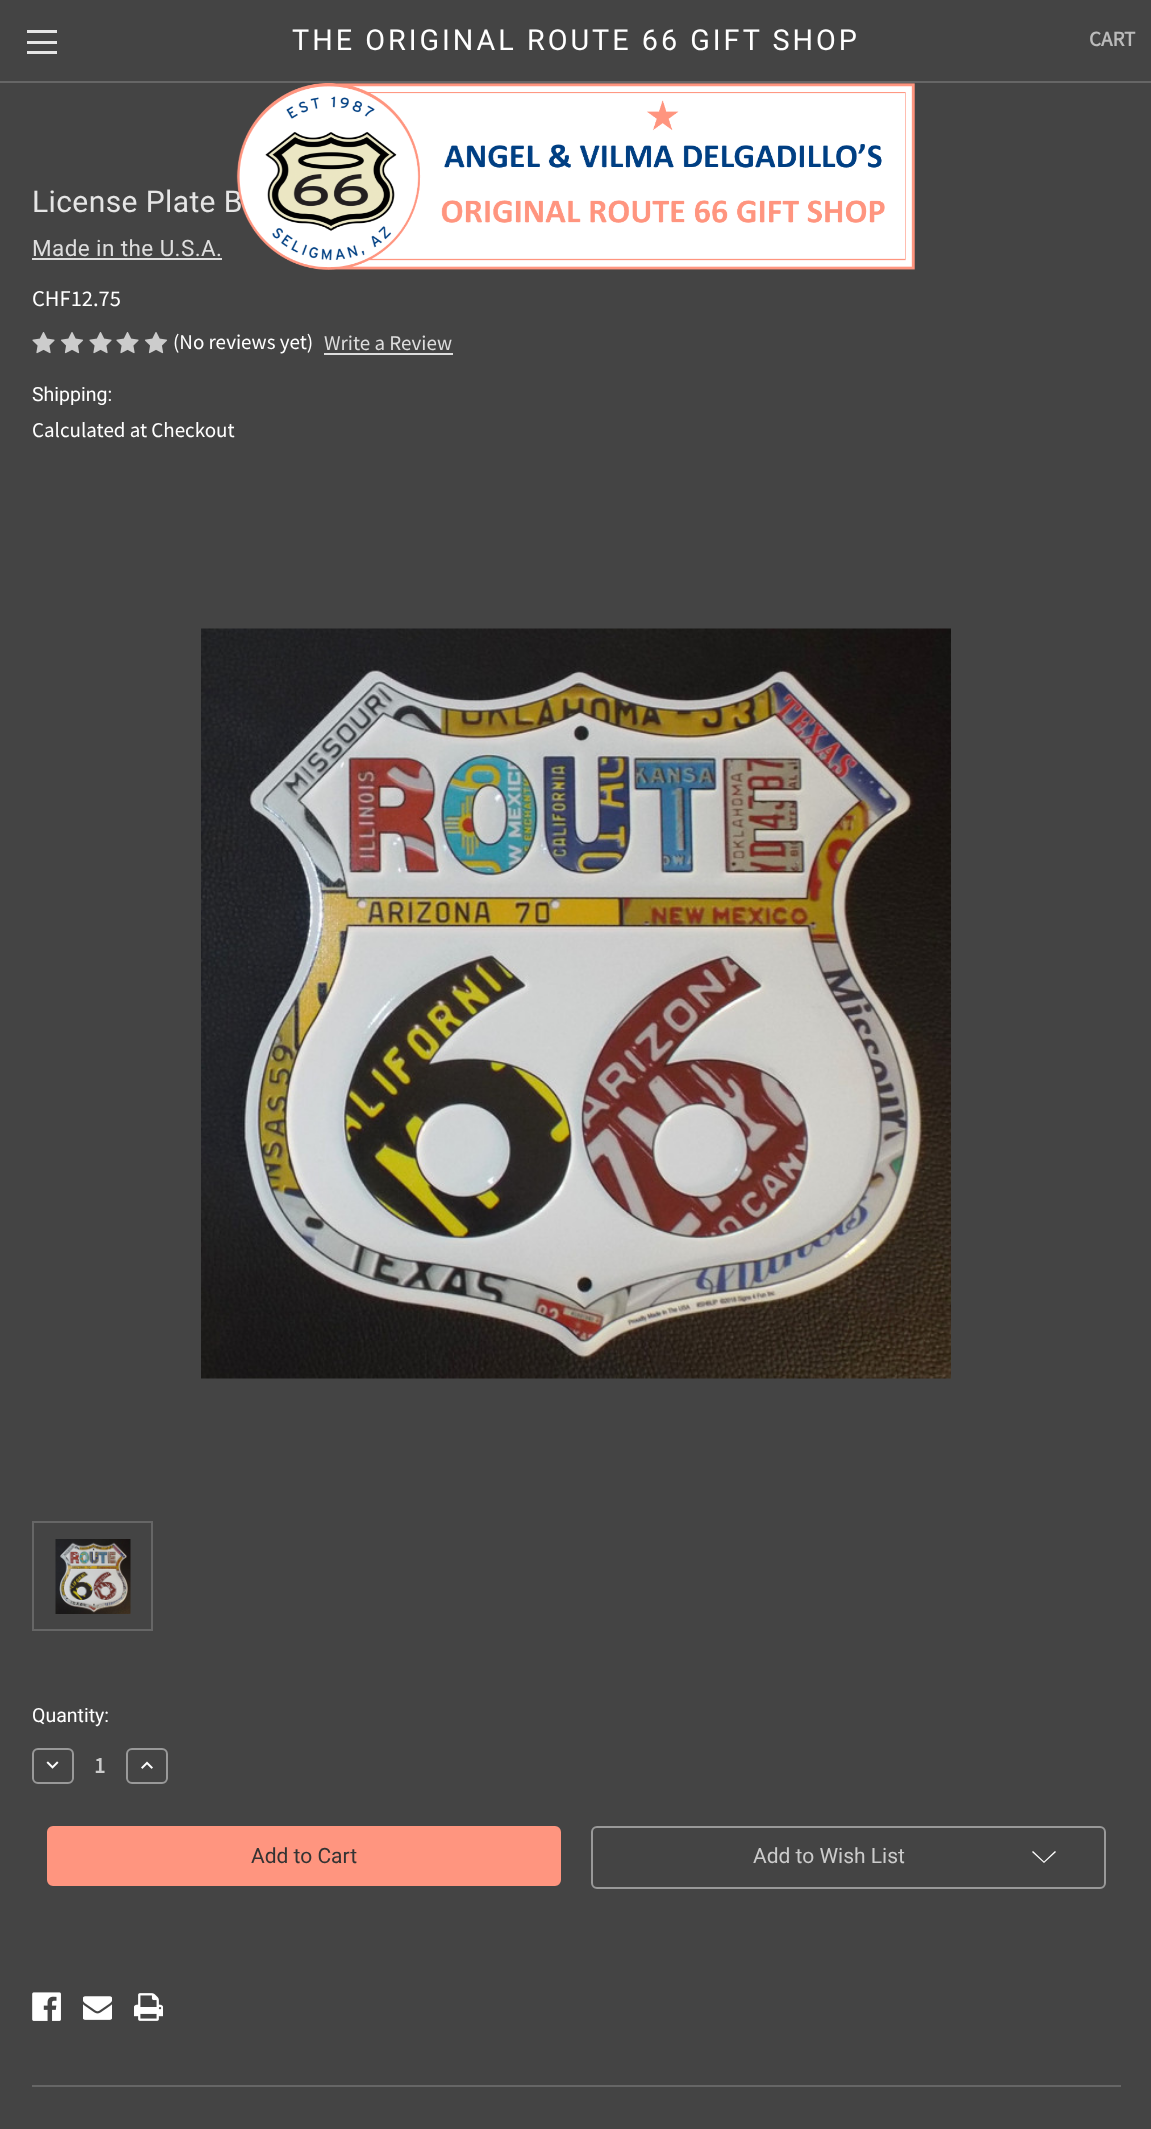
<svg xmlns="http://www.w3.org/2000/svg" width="1151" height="2129">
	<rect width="100%" height="100%" fill="#444444" />
	<rect x="0" y="81" width="1151" height="2" fill="#666666" />
	<rect x="27" y="41" width="30" height="3" fill="#E5E5E5" />
	<rect x="27" y="30" width="30" height="3" fill="#E5E5E5" />
	<rect x="27" y="51" width="30" height="3" fill="#E5E5E5" />
	<text x="292" y="50" font-family="Roboto" font-size="28.75" letter-spacing="3" fill="#FFFFFF">THE ORIGINAL ROUTE 66 GIFT SHOP</text>
	<text x="1089" y="46" font-family="Source Sans Pro" font-size="21" font-weight="700" fill="#BBBBBB">CART</text>
	<text x="32" y="212" font-family="Roboto" font-size="30" letter-spacing="0.4" fill="#E5E5E5">License Plate B</text>
	<image x="236" y="83" width="679" height="187" href="assets/img1.png" />
	<text x="32" y="256" font-family="Roboto" font-size="22.5" letter-spacing="0.4" fill="#DDDDDD">Made in the U.S.A.</text>
	<rect x="32" y="258" width="190" height="2" fill="#DDDDDD" />
	<text x="32" y="306" font-family="Source Sans Pro" font-size="22.5" fill="#FFFFFF">CHF12.75</text>
	<image x="32" y="332" width="23" height="22" href="assets/img2.png" />
	<image x="60" y="332" width="24" height="22" href="assets/img3.png" />
	<image x="89" y="332" width="23" height="22" href="assets/img2.png" />
	<image x="116" y="332" width="23" height="22" href="assets/img2.png" />
	<image x="144" y="332" width="24" height="22" href="assets/img3.png" />
	<text x="173" y="349" font-family="Source Sans Pro" font-size="21" fill="#FFFFFF">(No reviews yet)</text>
	<text x="324" y="350" font-family="Source Sans Pro" font-size="21" fill="#DDDDDD">Write a Review</text>
	<rect x="324" y="353" width="129" height="2" fill="#DDDDDD" />
	<text x="32" y="401" font-family="Roboto" font-size="19.5" fill="#FFFFFF">Shipping:</text>
	<text x="32" y="437" font-family="Source Sans Pro" font-size="21" fill="#FFFFFF">Calculated at Checkout</text>
	<image x="201" y="628" width="750" height="751" href="assets/img4.png" />
	<rect x="33" y="1522" width="119" height="108" fill="none" stroke="#666666" stroke-width="2" />
	<image x="55" y="1539" width="76" height="75" href="assets/img5.png" />
	<text x="32" y="1722" font-family="Roboto" font-size="19.5" fill="#FFFFFF">Quantity:</text>
	<rect x="33" y="1749" width="40" height="34" rx="5" fill="none" stroke="#999999" stroke-width="2" />
	<image x="46" y="1761" width="13" height="8" href="assets/img6.png" />
	<text x="94" y="1773" font-family="Source Sans Pro" font-size="22.5" font-weight="700" fill="#CCCCCC">1</text>
	<rect x="127" y="1749" width="40" height="34" rx="5" fill="none" stroke="#999999" stroke-width="2" />
	<image x="141" y="1761" width="12" height="8" href="assets/img7.png" />
	<rect x="48" y="1827" width="512" height="58" rx="5" fill="#FF957F" stroke="#FF957F" stroke-width="2" />
	<text x="251" y="1863" font-family="Roboto" font-size="21" fill="#333333">Add to Cart</text>
	<rect x="592" y="1827" width="513" height="61" rx="5" fill="none" stroke="#999999" stroke-width="2" />
	<text x="753" y="1863" font-family="Roboto" font-size="21" fill="#CCCCCC">Add to Wish List</text>
	<path d="M1044 1861.5L1055 1851L1056 1852L1044 1863L1032 1852L1033 1851Z" fill="#FFFFFF" fill-rule="evenodd" />
	<image x="32" y="1992" width="29" height="29" href="assets/img8.png" />
	<image x="83" y="1996" width="29" height="24" href="assets/img9.png" />
	<image x="134" y="1993" width="29" height="28" href="assets/img10.png" />
	<rect x="32" y="2085" width="1089" height="2" fill="#666666" />
</svg>
